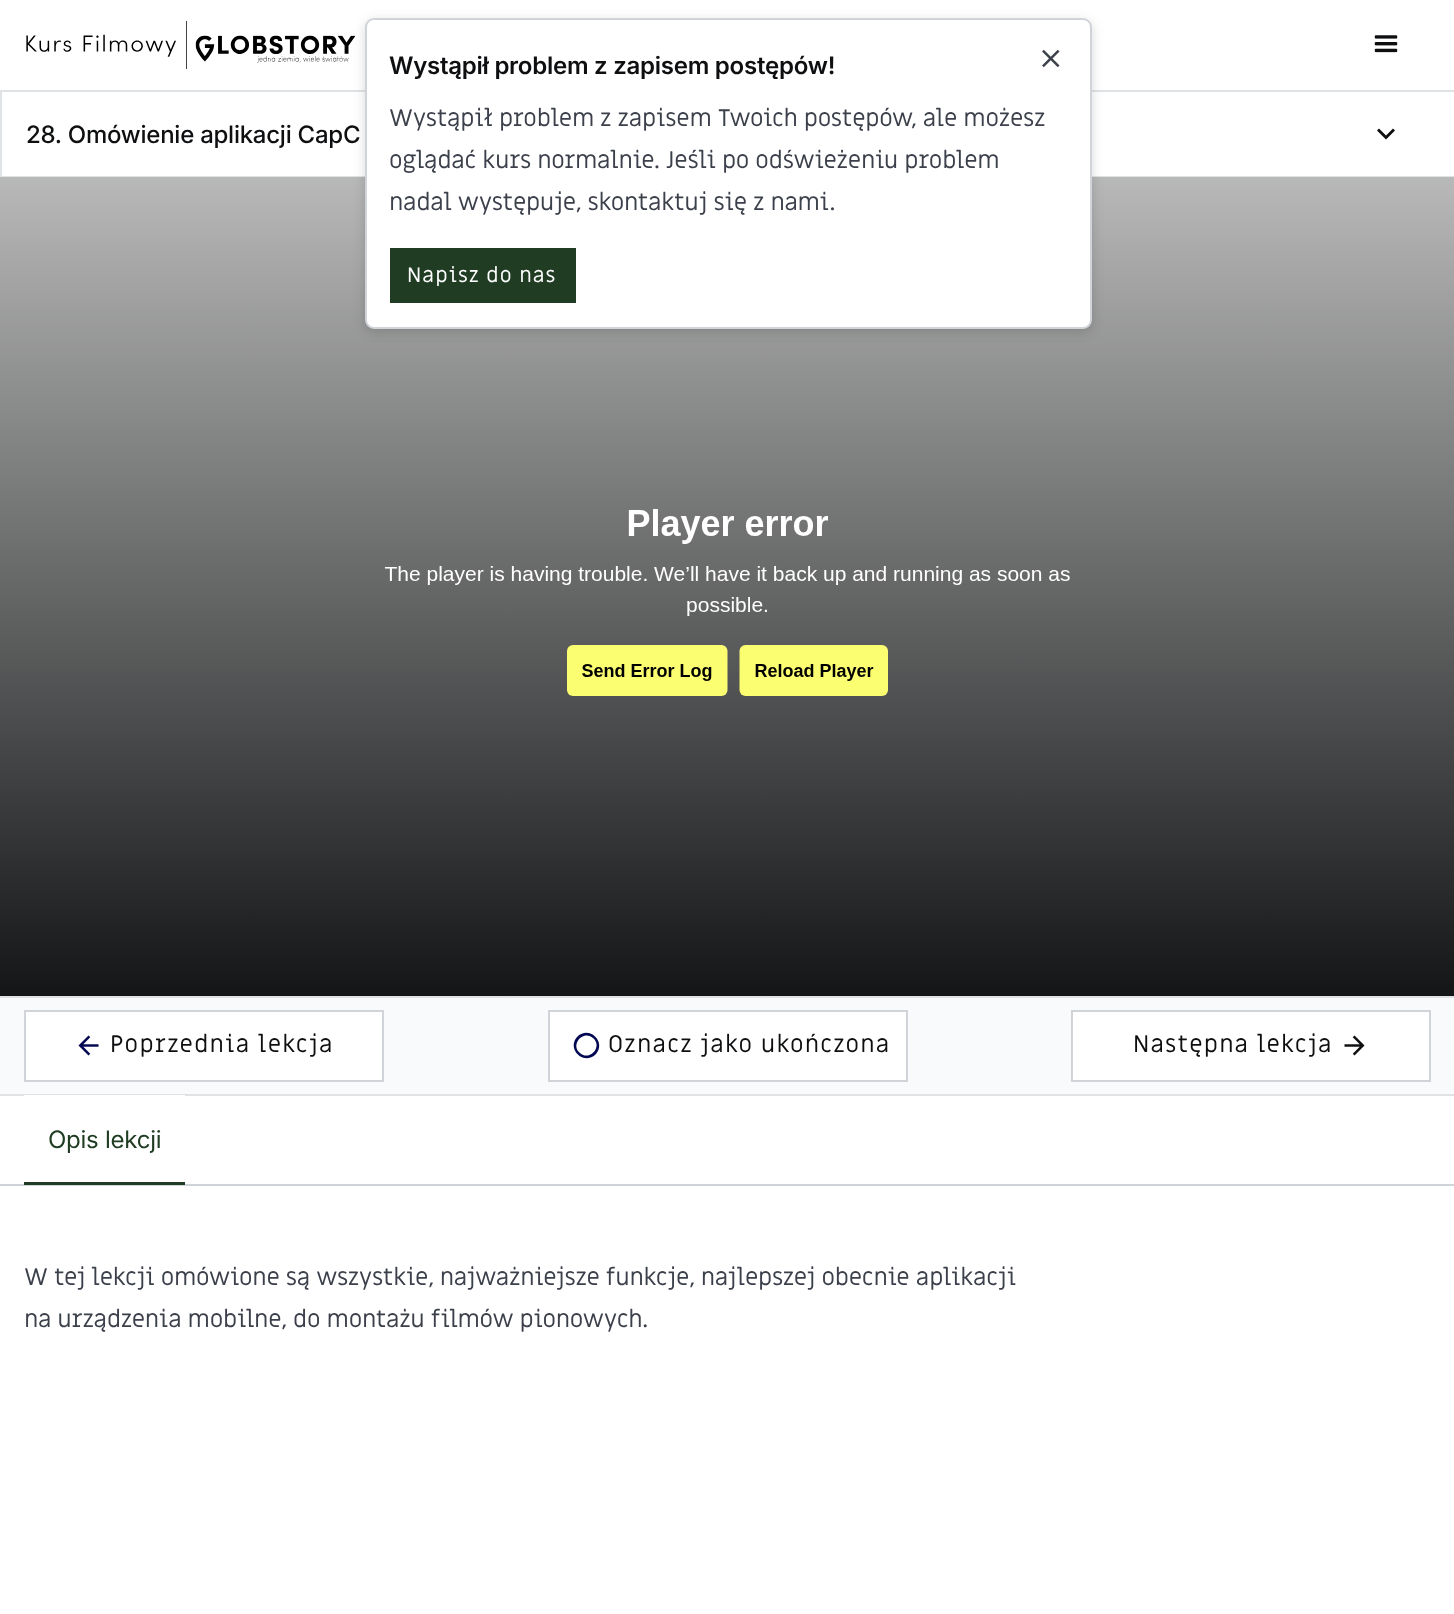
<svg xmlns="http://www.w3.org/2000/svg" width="1454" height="1614">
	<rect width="100%" height="100%" fill="#FFFFFF" />
	<rect x="0" y="90" width="1454" height="2" fill="#E0E3E6" />
	<image x="26" y="21" width="329" height="48" href="assets/img2.png" />
	<rect x="2" y="176" width="1452" height="1" fill="#E0E3E6" />
	<image x="0" y="177" width="1454" height="819" href="assets/img4.png" />
	<rect x="365" y="21" width="727" height="311" rx="9" fill="#000000" fill-opacity="0.15" filter="blur(6px)" />
	<rect x="366" y="19" width="725" height="309" rx="8" fill="#FFFFFF" stroke="#D0D4D9" stroke-width="2" />
	<text x="389" y="74" font-family="Inter" font-size="24" font-weight="600" letter-spacing="-0.25" fill="#0E0F11">Wystąpił problem z zapisem postępów!</text>
	<image x="1042" y="49" width="18" height="19" href="assets/img1.png" />
	<g font-family="Miriam Libre" font-size="24" letter-spacing="-0.25" fill="#3C404B">
		<text x="389" y="126">Wystąpił problem z zapisem Twoich postępów, ale możesz</text>
		<text x="389" y="168">oglądać kurs normalnie. Jeśli po odświeżeniu problem</text>
		<text x="389" y="210">nadal występuje, skontaktuj się z nami.</text>
	</g>
	<rect x="390" y="248" width="186" height="55" fill="#203D23" />
	<text x="407" y="282" font-family="Miriam Libre" font-size="21" letter-spacing="1" fill="#FFFFFF">Napisz do nas</text>
	<image x="1374" y="35" width="24" height="18" href="assets/img3.png" />
	<rect x="0" y="92" width="2" height="85" fill="#E0E3E6" />
	<text x="26" y="143" font-family="Inter" font-size="24" font-weight="500" letter-spacing="-0.25" fill="#0E0F11">28. Omówienie aplikacji CapC</text>
	<path d="M1379 128.5L1386 135.5L1393 128.5L1395 130.5L1386 139.5L1377 130.5Z" fill="#0E0F11" />
	<rect x="0" y="998" width="1454" height="96" fill="#F9FAFB" />
	<rect x="0" y="996" width="1454" height="2" fill="#E0E3E6" />
	<rect x="0" y="1094" width="1454" height="2" fill="#E0E3E6" />
	<rect x="25" y="1011" width="358" height="70" fill="#FFFFFF" stroke="#D0D4D9" stroke-width="2" />
	<image x="78" y="1035" width="21" height="21" href="assets/img5.png" />
	<text x="110" y="1052" font-family="Miriam Libre" font-size="24" letter-spacing="1.2" fill="#0E0F11">Poprzednia lekcja</text>
	<rect x="549" y="1011" width="358" height="70" fill="#FFFFFF" stroke="#D0D4D9" stroke-width="2" />
	<path d="M579.5 1052.5C588.5 1062 603 1047.5 593.5 1038.5C584.5 1029 570 1043.5 579.5 1052.5ZM577.5 1036.5C589.5 1025 607 1042.5 595.5 1054.5C583.5 1066 566 1048.5 577.5 1036.5Z" fill="#030852" />
	<text x="608" y="1052" font-family="Miriam Libre" font-size="24" letter-spacing="1.2" fill="#0E0F11">Oznacz jako ukończona</text>
	<rect x="1072" y="1011" width="358" height="70" fill="#FFFFFF" stroke="#D0D4D9" stroke-width="2" />
	<text x="1133" y="1052" font-family="Miriam Libre" font-size="24" letter-spacing="1.2" fill="#0E0F11">Następna lekcja</text>
	<image x="1344" y="1035" width="21" height="21" href="assets/img6.png" />
	<rect x="0" y="1184" width="1454" height="2" fill="#D0D4D9" />
	<rect x="24" y="1095" width="161" height="1" fill="#FFFFFF" />
	<rect x="24" y="1182" width="161" height="3" fill="#203D23" />
	<text x="48" y="1148" font-family="Inter" font-size="24" letter-spacing="-0.25" fill="#203D23">Opis lekcji</text>
	<g font-family="Miriam Libre" font-size="24" letter-spacing="-0.25" fill="#3C404B">
		<text x="24" y="1285">W tej lekcji omówione są wszystkie, najważniejsze funkcje, najlepszej obecnie aplikacji</text>
		<text x="24" y="1327">na urządzenia mobilne, do montażu filmów pionowych.</text>
	</g>
</svg>
